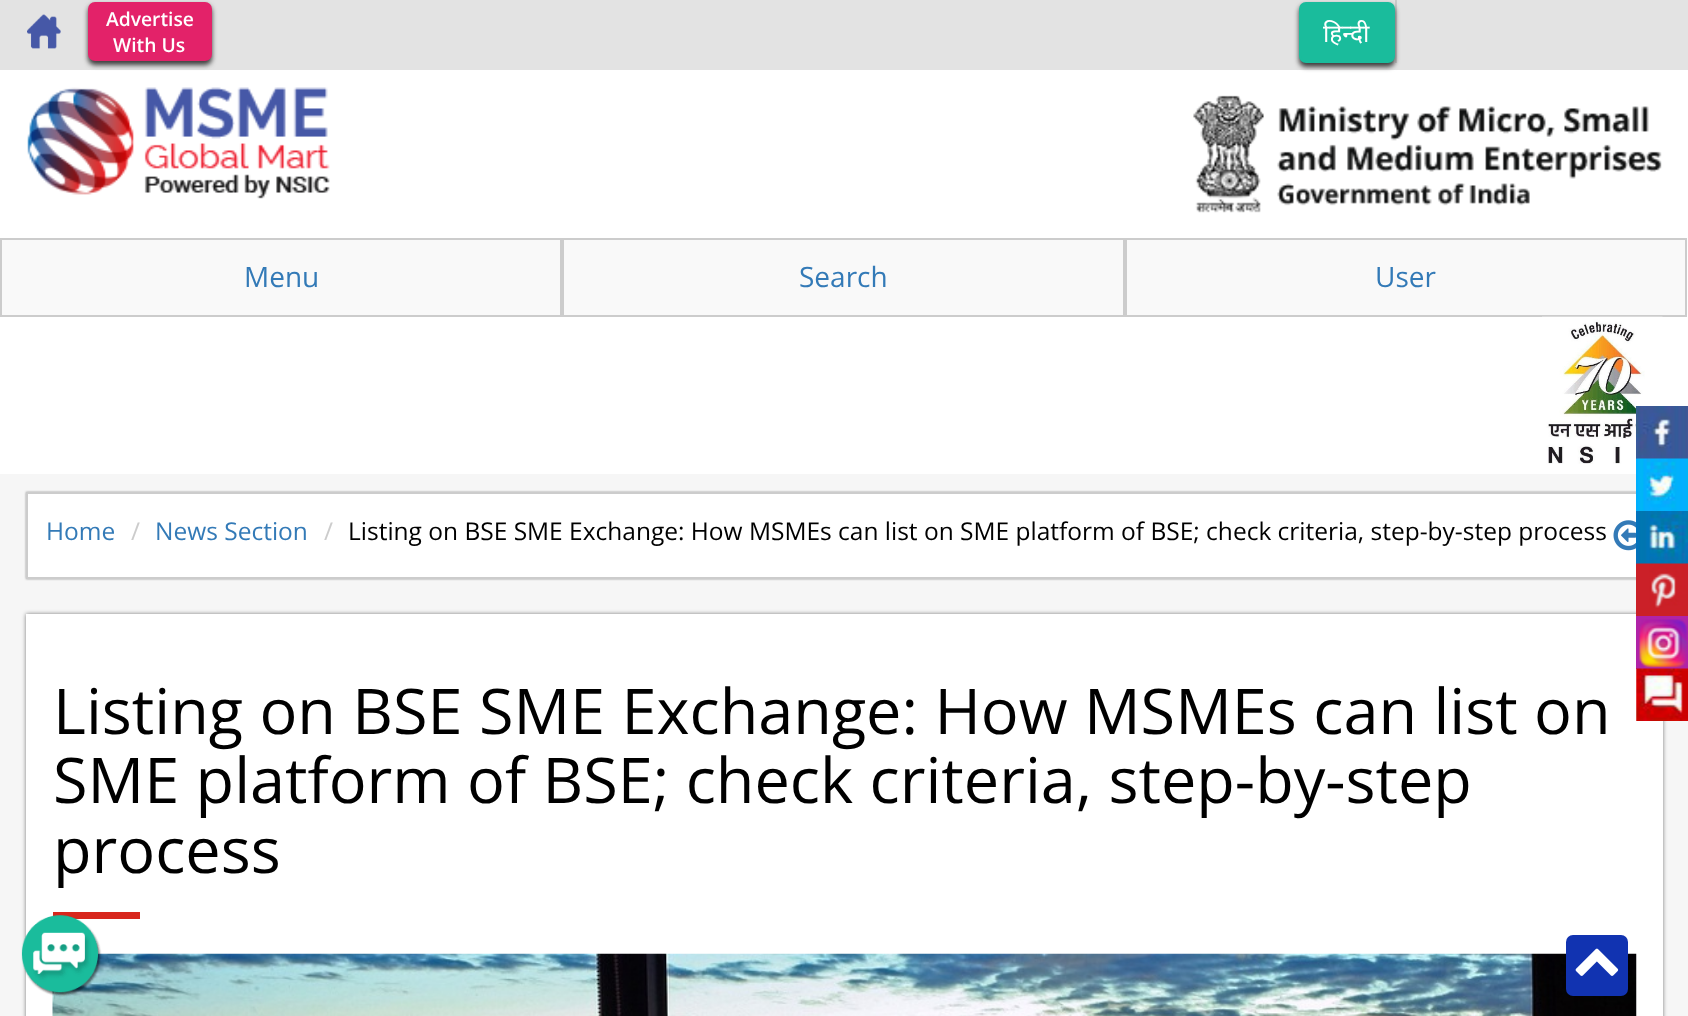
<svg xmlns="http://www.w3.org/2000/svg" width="1688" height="1016">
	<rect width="100%" height="100%" fill="#F6F6F6" />
	<rect x="0" y="0" width="1688" height="70" fill="#E3E3E3" />
	<image x="27" y="14" width="34" height="35" href="assets/img1.png" />
	<rect x="0" y="70" width="1688" height="404" fill="#FFFFFF" />
	<rect x="88" y="5" width="124" height="60" rx="7" fill="#3E3D3D" filter="blur(2.5px)" />
	<rect x="88" y="2" width="124" height="59" rx="7" fill="#E32269" />
	<g font-family="Open Sans" font-size="19.25" font-weight="600" fill="#FFFFFF">
		<text x="106" y="26">Advertise</text>
		<text x="113" y="52">With Us</text>
	</g>
	<rect x="1395" y="0" width="2" height="63" fill="#CACACA" />
	<rect x="1299" y="5" width="96" height="62" rx="7" fill="#3E3D3D" filter="blur(2.5px)" />
	<rect x="1300" y="3" width="94" height="59" rx="6" fill="#1ABC9C" stroke="#1ABC9C" stroke-width="2" />
	<text x="1323" y="42" font-family="Noto Sans" font-size="24.5" fill="#FFFFFF">हिन्दी</text>
	<image x="27" y="87" width="303" height="112" href="assets/img2.png" />
	<image x="1193" y="95" width="469" height="118" href="assets/img3.png" />
	<rect x="1" y="239" width="560" height="77" fill="#F9F9F9" stroke="#CCCCCC" stroke-width="2" />
	<text x="244" y="287" font-family="Open Sans" font-size="28" fill="#337AB7">Menu</text>
	<rect x="563" y="239" width="561" height="77" fill="#F9F9F9" stroke="#CCCCCC" stroke-width="2" />
	<text x="799" y="287" font-family="Open Sans" font-size="28" fill="#337AB7">Search</text>
	<rect x="1126" y="239" width="560" height="77" fill="#F9F9F9" stroke="#CCCCCC" stroke-width="2" />
	<text x="1375" y="287" font-family="Open Sans" font-size="28" fill="#337AB7">User</text>
	<image x="1542" y="316" width="121" height="148" href="assets/img4.png" />
	<rect x="26" y="492" width="1637" height="87" fill="#000000" fill-opacity="0.4" filter="blur(1px)" />
	<rect x="28" y="494" width="1608" height="83" fill="#FFFFFF" />
	<rect x="27" y="493" width="1635" height="85" fill="none" stroke="#CCCCCC" stroke-width="2" />
	<text x="46" y="540" font-family="Open Sans" font-size="24.5" fill="#337AB7">Home</text>
	<text x="131" y="540" font-family="Open Sans" font-size="24.5" fill="#CCCCCC">/</text>
	<text x="155" y="540" font-family="Open Sans" font-size="24.5" fill="#337AB7">News Section</text>
	<text x="324" y="540" font-family="Open Sans" font-size="24.5" fill="#CCCCCC">/</text>
	<text x="348" y="540" font-family="Open Sans" font-size="24.5" fill="#000000">Listing on BSE SME Exchange: How MSMEs can list on SME platform of BSE; check criteria, step-by-step process</text>
	<image x="1613" y="520" width="23" height="31" href="assets/img5.png" />
	<rect x="26" y="614" width="1637" height="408" fill="#000000" fill-opacity="0.5" filter="blur(2px)" />
	<rect x="26" y="614" width="1637" height="402" fill="#FFFFFF" />
	<g font-family="Open Sans" font-size="63" fill="#000000">
		<text x="53" y="734">Listing on BSE SME Exchange: How MSMEs can list on</text>
		<text x="53" y="803">SME platform of BSE; check criteria, step-by-step</text>
		<text x="53" y="873">process</text>
	</g>
	<rect x="53" y="912" width="87" height="7" fill="#D8261C" />
	<image x="52" y="953" width="1585" height="63" href="assets/img6.png" />
	<rect x="1636" y="406" width="52" height="53" fill="#3B5997" />
	<image x="1636" y="406" width="52" height="52" href="assets/img7.png" />
	<rect x="1636" y="459" width="52" height="52" fill="#01B1FD" />
	<image x="1636" y="458" width="52" height="53" href="assets/img8.png" />
	<rect x="1636" y="511" width="52" height="53" fill="#0078B4" />
	<image x="1636" y="511" width="52" height="53" href="assets/img9.png" />
	<rect x="1636" y="564" width="52" height="52" fill="#CB2027" />
	<image x="1636" y="563" width="52" height="45" href="assets/img10.png" />
	<rect x="1636" y="616" width="52" height="53" fill="#B023A7" />
	<image x="1639" y="619" width="49" height="49" href="assets/img11.png" />
	<image x="1636" y="668" width="52" height="53" href="assets/img12.png" />
	<image x="21" y="915" width="81" height="82" href="assets/img13.png" />
	<rect x="1566" y="935" width="62" height="61" rx="7" fill="#1133B1" />
	<image x="1575" y="948" width="44" height="28" href="assets/img14.png" />
</svg>
